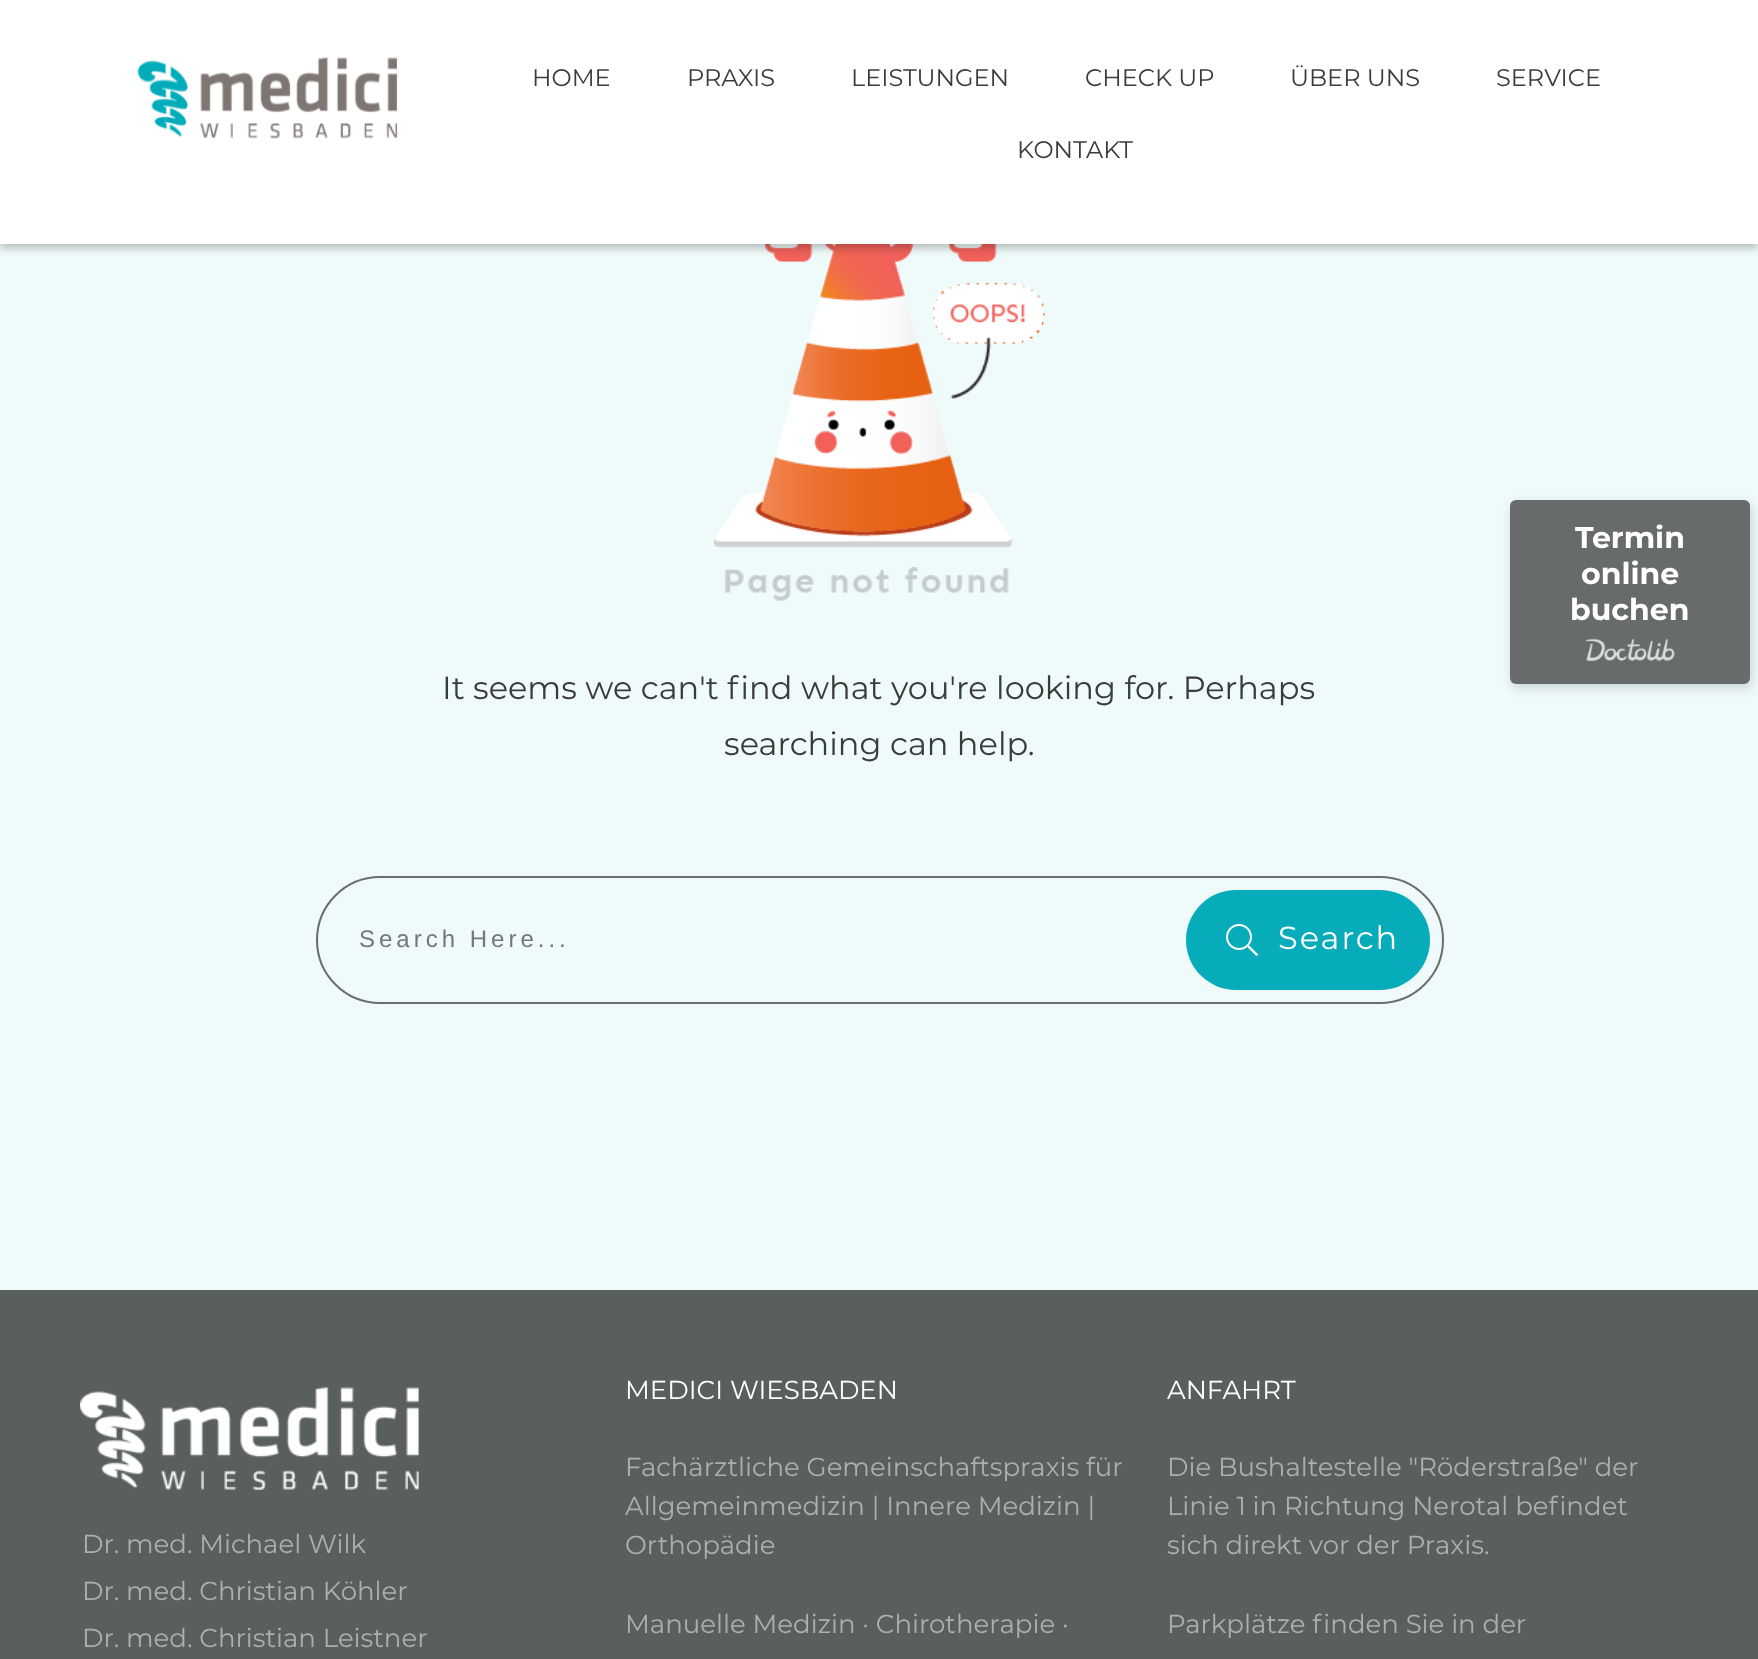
<svg xmlns="http://www.w3.org/2000/svg" width="1758" height="1659">
	<rect width="100%" height="100%" fill="#EFFAFB" />
	<image x="714" y="244" width="331" height="357" href="assets/img2.png" />
	<rect x="0" y="4" width="1758" height="244" fill="#000000" fill-opacity="0.25" filter="blur(4px)" />
	<rect x="0" y="0" width="1758" height="244" fill="#FFFFFF" />
	<image x="137" y="57" width="261" height="82" href="assets/img1.png" />
	<g font-family="Montserrat" font-size="24" fill="#3B3B3B">
		<text x="532" y="86">HOME</text>
		<text x="687" y="86">PRAXIS</text>
		<text x="851" y="86">LEISTUNGEN</text>
		<text x="1085" y="86">CHECK UP</text>
		<text x="1290" y="86">ÜBER UNS</text>
		<text x="1496" y="86">SERVICE</text>
		<text x="1017" y="158">KONTAKT</text>
	</g>
	<g font-family="Montserrat" font-size="32" fill="#3B3B3B">
		<text x="442" y="699">It seems we can't find what you're looking for. Perhaps</text>
		<text x="724" y="755">searching can help.</text>
	</g>
	<rect x="317" y="877" width="1126" height="126" rx="63" fill="none" stroke="#6C6C6C" stroke-width="2" />
	<text x="359" y="947" font-family="Liberation Sans" font-size="24" letter-spacing="4" fill="#737878">Search Here...</text>
	<rect x="1186" y="890" width="244" height="100" rx="50" fill="#07ACBB" />
	<image x="1226" y="924" width="32" height="32" href="assets/img3.png" />
	<text x="1278" y="949" font-family="Montserrat" font-size="32" letter-spacing="2" fill="#FFFFFF">Search</text>
	<rect x="0" y="1290" width="1758" height="369" fill="#595E5F" />
	<image x="80" y="1387" width="339" height="103" href="assets/img4.png" />
	<g font-family="Montserrat" font-size="26" fill="#ACAFAF">
		<text x="82" y="1553">Dr. med. Michael Wilk</text>
		<text x="82" y="1600">Dr. med. Christian Köhler</text>
		<text x="82" y="1647">Dr. med. Christian Leistner</text>
	</g>
	<text x="625" y="1399" font-family="Montserrat" font-size="26" fill="#FFFFFF">MEDICI WIESBADEN</text>
	<g font-family="Montserrat" font-size="26" fill="#ACAFAF">
		<text x="625" y="1476">Fachärztliche Gemeinschaftspraxis für</text>
		<text x="625" y="1515">Allgemeinmedizin | Innere Medizin |</text>
		<text x="625" y="1554">Orthopädie</text>
		<text x="625" y="1633">Manuelle Medizin · Chirotherapie ·</text>
	</g>
	<text x="1167" y="1399" font-family="Montserrat" font-size="26" fill="#FFFFFF">ANFAHRT</text>
	<g font-family="Montserrat" font-size="26" fill="#ACAFAF">
		<text x="1167" y="1476">Die Bushaltestelle "Röderstraße" der</text>
		<text x="1167" y="1515">Linie 1 in Richtung Nerotal befindet</text>
		<text x="1167" y="1554">sich direkt vor der Praxis.</text>
		<text x="1167" y="1633">Parkplätze finden Sie in der</text>
	</g>
	<rect x="1512" y="504" width="240" height="184" rx="6" fill="#3C3F3F" fill-opacity="0.2" filter="blur(6px)" />
	<rect x="1510" y="500" width="240" height="184" rx="6" fill="#686B6B" />
	<g font-family="Montserrat" font-size="30" font-weight="700" fill="#FFFFFF">
		<text x="1575" y="548">Termin</text>
		<text x="1581" y="584">online</text>
		<text x="1570" y="620">buchen</text>
	</g>
	<image x="1585" y="638" width="90" height="24" href="assets/img5.png" />
</svg>
